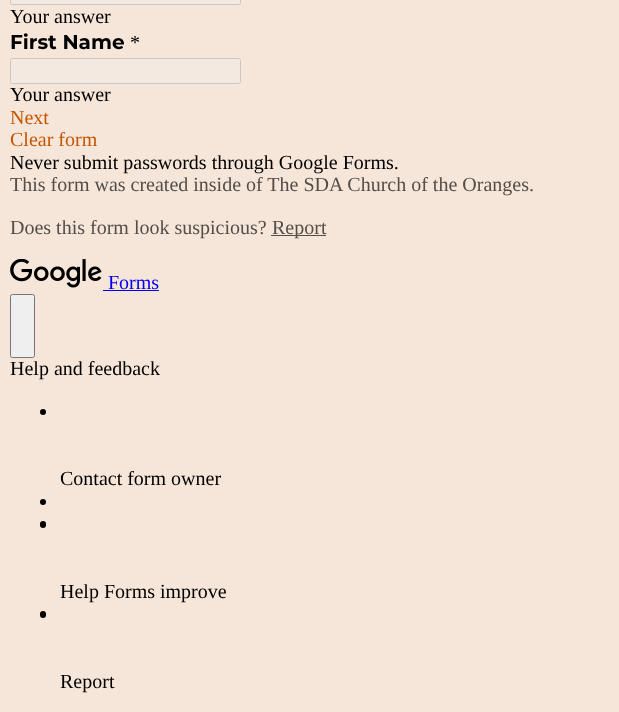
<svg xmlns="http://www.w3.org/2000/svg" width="619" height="712">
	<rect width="100%" height="100%" fill="#F6E6D9" />
	<rect x="10.5" y="-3.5" width="230" height="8" rx="2" fill="#F4E9E0" stroke="#CEC6C0" />
	<text x="10" y="23" font-family="Liberation Serif" font-size="20" fill="#000000">Your answer</text>
	<text x="10" y="49" font-family="Montserrat" font-size="20" font-weight="700" fill="#000000">First Name</text>
	<text x="130" y="49" font-family="Liberation Serif" font-size="20" fill="#000000">*</text>
	<rect x="10.5" y="58.5" width="230" height="25" rx="2" fill="#F4E9E0" stroke="#CEC6C0" />
	<text x="10" y="101" font-family="Liberation Serif" font-size="20" fill="#000000">Your answer</text>
	<g font-family="Liberation Serif" font-size="20" fill="#C55500">
		<text x="10" y="124">Next</text>
		<text x="10" y="146">Clear form</text>
	</g>
	<text x="10" y="169" font-family="Liberation Serif" font-size="20" fill="#000000">Never submit passwords through Google Forms.</text>
	<g font-family="Liberation Serif" font-size="20" fill="#544E4A">
		<text x="10" y="191">This form was created inside of The SDA Church of the Oranges.</text>
		<text x="10" y="234">Does this form look suspicious?</text>
	</g>
	<rect x="271" y="235" width="55" height="1" fill="#544E4A" />
	<text x="272" y="234" font-family="Liberation Serif" font-size="20" fill="#544E4A">Report</text>
	<image x="10" y="259" width="92" height="29" href="assets/img1.png" />
	<text x="108" y="289" font-family="Liberation Serif" font-size="20" fill="#0000EE">Forms</text>
	<rect x="103" y="290" width="56" height="1" fill="#0000EE" />
	<rect x="10.5" y="294.5" width="24" height="63" rx="2" fill="#EFEFEF" stroke="#767676" />
	<text x="10" y="375" font-family="Liberation Serif" font-size="20" fill="#000000">Help and feedback</text>
	<circle cx="43" cy="412" r="3" fill="#000000" />
	<text x="60" y="485" font-family="Liberation Serif" font-size="20" fill="#000000">Contact form owner</text>
	<circle cx="43" cy="502" r="3" fill="#000000" />
	<rect x="40" y="521" width="6" height="7" rx="3" fill="#000000" />
	<text x="60" y="598" font-family="Liberation Serif" font-size="20" fill="#000000">Help Forms improve</text>
	<rect x="40" y="611" width="6" height="7" rx="3" fill="#000000" />
	<text x="60" y="688" font-family="Liberation Serif" font-size="20" fill="#000000">Report</text>
</svg>
